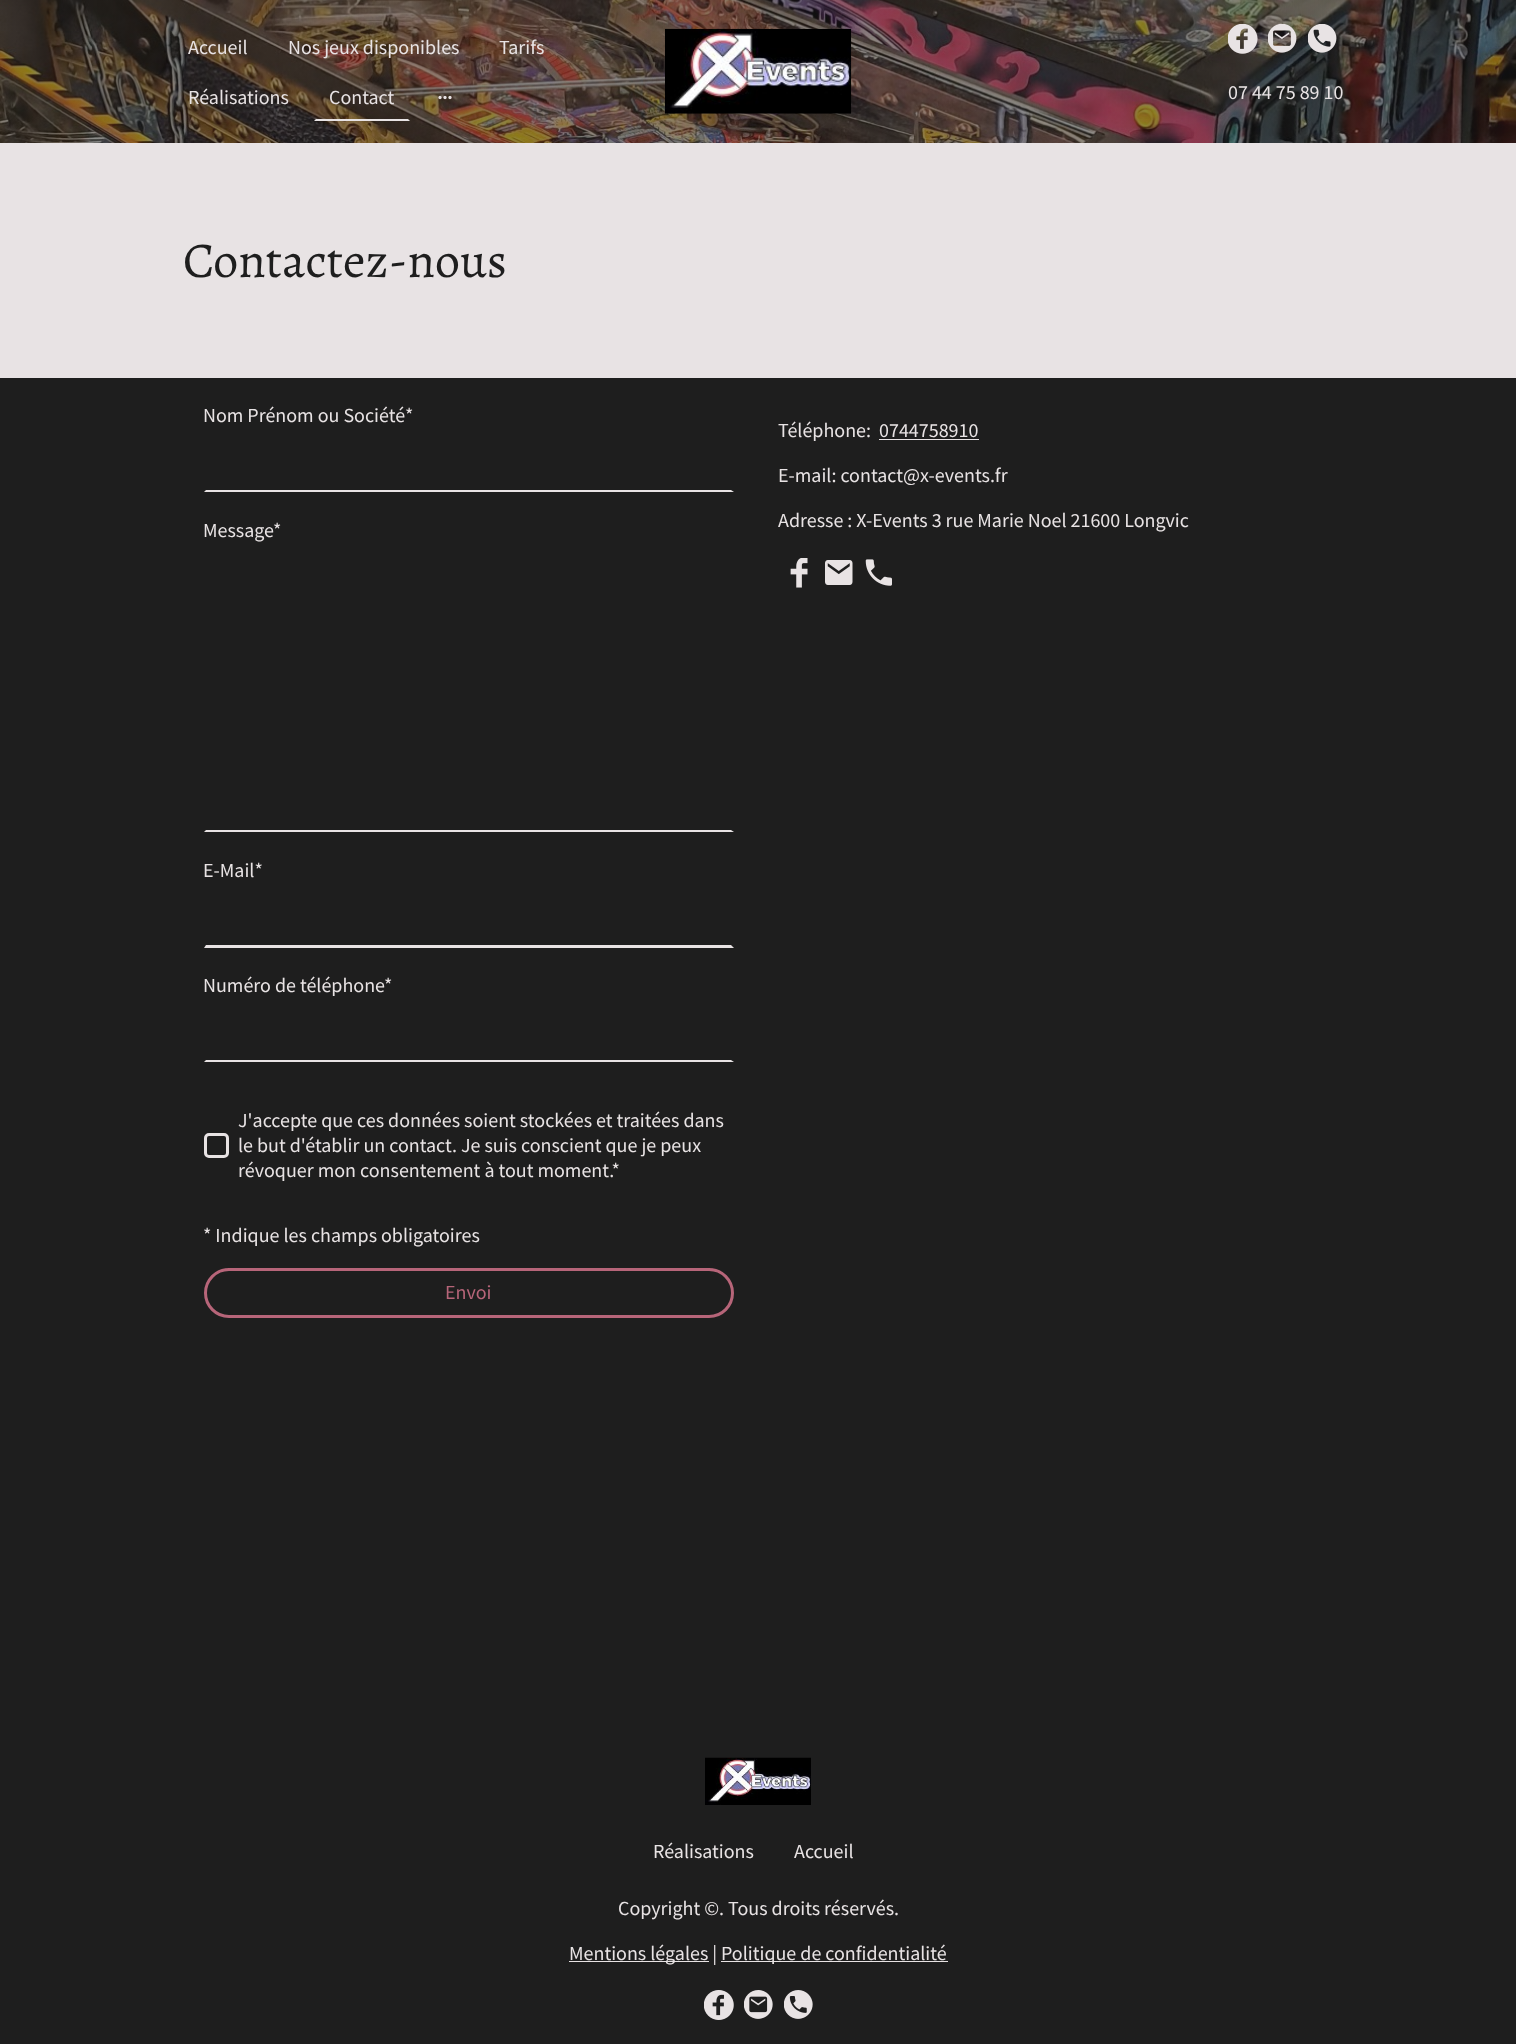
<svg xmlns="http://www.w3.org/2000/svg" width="1516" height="2044">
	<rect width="100%" height="100%" fill="#1E1E1E" />
	<image x="0" y="0" width="1516" height="143" href="assets/img1.png" />
	<g font-family="Source Sans Pro" font-size="20" fill="#E8E3E4">
		<text x="188" y="54">Accueil</text>
		<text x="288" y="54">Nos jeux disponibles</text>
		<text x="499" y="54">Tarifs</text>
		<text x="188" y="104">Réalisations</text>
	</g>
	<path d="M410 121H314L316 119H408Z" fill="#E8E3E4" />
	<text x="329" y="104" font-family="Source Sans Pro" font-size="20" fill="#E8E3E4">Contact</text>
	<image x="438" y="95" width="14" height="5" href="assets/img2.png" />
	<image x="665" y="28" width="187" height="86" href="assets/img3.png" />
	<image x="1228" y="24" width="30" height="30" href="assets/img4.png" />
	<image x="1268" y="24" width="29" height="29" href="assets/img5.png" />
	<image x="1308" y="24" width="29" height="29" href="assets/img6.png" />
	<text x="1228" y="99" font-family="Source Sans Pro" font-size="20" fill="#E8E3E4">07 44 75 89 10</text>
	<rect x="0" y="143" width="1516" height="235" fill="#E8E3E4" />
	<text x="183" y="277" font-family="Alegreya" font-size="50" fill="#1E1E1E">Contactez-nous</text>
	<g font-family="Source Sans Pro" font-size="20" fill="#E8E3E4">
		<text x="203" y="422">Nom Prénom ou Société</text>
		<text x="405" y="422">*</text>
	</g>
	<path d="M734 492H204L206 490H731Z" fill="#E8E3E4" />
	<g font-family="Source Sans Pro" font-size="20" fill="#E8E3E4">
		<text x="203" y="537">Message</text>
		<text x="273" y="537">*</text>
	</g>
	<path d="M734 832H204L206 830H731Z" fill="#E8E3E4" />
	<text x="203" y="877" font-family="Source Sans Pro" font-size="20" fill="#E8E3E4">E-Mail*</text>
	<path d="M734 948H204L206 945H731Z" fill="#E8E3E4" />
	<g font-family="Source Sans Pro" font-size="20" fill="#E8E3E4">
		<text x="203" y="992">Numéro de téléphone</text>
		<text x="384" y="992">*</text>
	</g>
	<path d="M734 1062H204L206 1060H731Z" fill="#E8E3E4" />
	<rect x="205.5" y="1134.5" width="22" height="22" rx="3.5" fill="none" stroke="#E8E3E4" stroke-width="3" />
	<g font-family="Source Sans Pro" font-size="20" fill="#E8E3E4">
		<text x="238" y="1127">J'accepte que ces données soient stockées et traitées dans</text>
		<text x="238" y="1152">le but d'établir un contact. Je suis conscient que je peux</text>
		<text x="238" y="1177">révoquer mon consentement à tout moment.*</text>
		<text x="203" y="1242">* Indique les champs obligatoires</text>
	</g>
	<rect x="205.5" y="1269.5" width="527" height="47" rx="23.5" fill="none" stroke="#B76579" stroke-width="3" />
	<text x="445" y="1299" font-family="Source Sans Pro" font-size="20" fill="#B76579">Envoi</text>
	<g font-family="Source Sans Pro" font-size="20" fill="#E8E3E4">
		<text x="778" y="437">Téléphone:</text>
		<text x="879" y="437">0744758910</text>
	</g>
	<rect x="879" y="439" width="100" height="1" fill="#E8E3E4" />
	<g font-family="Source Sans Pro" font-size="20" fill="#E8E3E4">
		<text x="778" y="482">E-mail: contact@x-events.fr</text>
		<text x="778" y="527">Adresse : X-Events 3 rue Marie Noel 21600 Longvic</text>
	</g>
	<image x="790" y="558" width="18" height="30" href="assets/img7.png" />
	<image x="825" y="560" width="28" height="25" href="assets/img8.png" />
	<image x="865" y="559" width="27" height="27" href="assets/img9.png" />
	<image x="705" y="1757" width="106" height="48" href="assets/img10.png" />
	<g font-family="Source Sans Pro" font-size="20" fill="#E8E3E4">
		<text x="653" y="1858">Réalisations</text>
		<text x="794" y="1858">Accueil</text>
		<text x="618" y="1915">Copyright ©. Tous droits réservés.</text>
	</g>
	<rect x="569" y="1961" width="140" height="1" fill="#E8E3E4" />
	<text x="569" y="1960" font-family="Source Sans Pro" font-size="20" fill="#E8E3E4">Mentions légales |</text>
	<rect x="721" y="1961" width="227" height="1" fill="#E8E3E4" />
	<text x="721" y="1960" font-family="Source Sans Pro" font-size="20" fill="#E8E3E4">Politique de confidentialité</text>
	<image x="704" y="1990" width="30" height="30" href="assets/img11.png" />
	<image x="744" y="1990" width="29" height="29" href="assets/img12.png" />
	<image x="784" y="1990" width="29" height="29" href="assets/img13.png" />
</svg>
